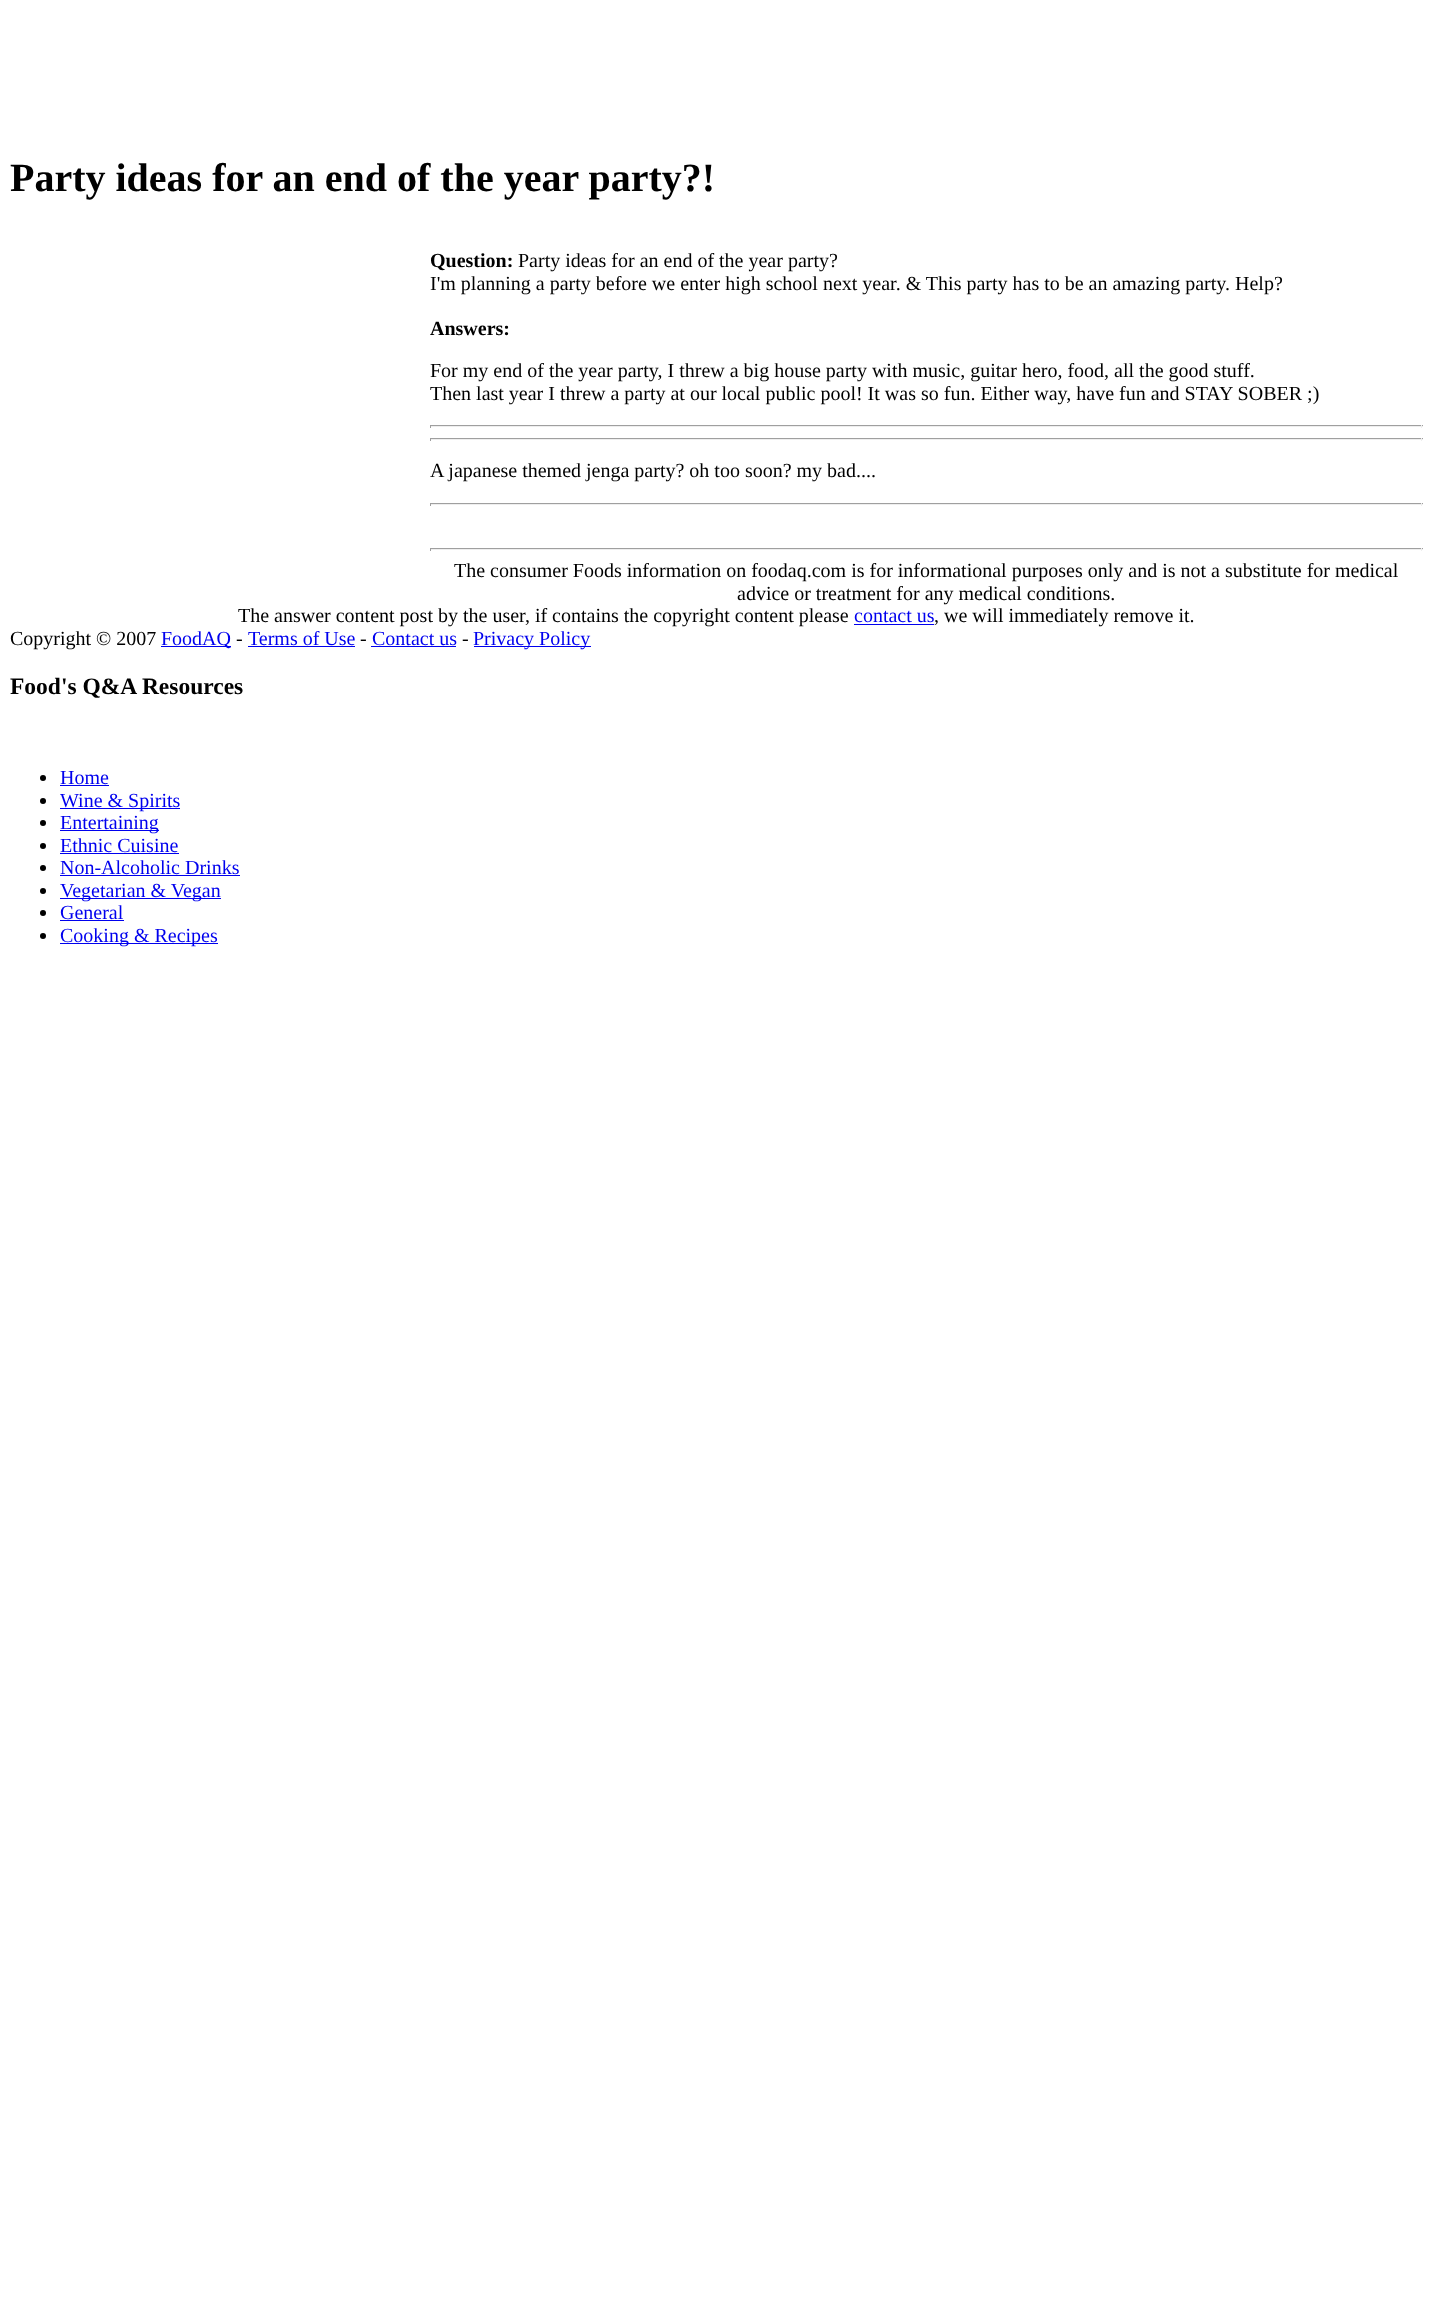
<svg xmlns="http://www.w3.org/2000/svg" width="1432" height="2321">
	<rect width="100%" height="100%" fill="#FFFFFF" />
	<text x="10" y="191" font-family="Liberation Serif" font-size="40" font-weight="700" fill="#000000">Party ideas for an end of the year party?!</text>
	<text x="430" y="267" font-family="Liberation Serif" font-size="20" font-weight="700" fill="#000000">Question:</text>
	<g font-family="Liberation Serif" font-size="20" fill="#000000">
		<text x="518" y="267">Party ideas for an end of the year party?</text>
		<text x="430" y="290">I'm planning a party before we enter high school next year. &amp; This party has to be an amazing party. Help?</text>
	</g>
	<text x="430" y="335" font-family="Liberation Serif" font-size="20" font-weight="700" fill="#000000">Answers:</text>
	<g font-family="Liberation Serif" font-size="20" fill="#000000">
		<text x="430" y="377">For my end of the year party, I threw a big house party with music, guitar hero, food, all the good stuff.</text>
		<text x="430" y="400">Then last year I threw a party at our local public pool! It was so fun. Either way, have fun and STAY SOBER ;)</text>
	</g>
	<rect x="430" y="425" width="993" height="1" fill="#9F9F9F" />
	<rect x="1421" y="425" width="1" height="3" fill="#EEEEEE" />
	<rect x="430" y="426" width="993" height="1" fill="#EEEEEE" />
	<rect x="430" y="425" width="1" height="3" fill="#9F9F9F" />
	<rect x="430" y="438" width="993" height="1" fill="#9F9F9F" />
	<rect x="1421" y="438" width="1" height="3" fill="#EEEEEE" />
	<rect x="430" y="439" width="993" height="1" fill="#EEEEEE" />
	<rect x="430" y="438" width="1" height="3" fill="#9F9F9F" />
	<text x="430" y="477" font-family="Liberation Serif" font-size="20" fill="#000000">A japanese themed jenga party? oh too soon? my bad....</text>
	<rect x="430" y="503" width="993" height="1" fill="#9F9F9F" />
	<rect x="1421" y="503" width="1" height="3" fill="#EEEEEE" />
	<rect x="430" y="504" width="993" height="1" fill="#EEEEEE" />
	<rect x="430" y="503" width="1" height="3" fill="#9F9F9F" />
	<rect x="430" y="548" width="993" height="1" fill="#9F9F9F" />
	<rect x="1421" y="548" width="1" height="3" fill="#EEEEEE" />
	<rect x="430" y="549" width="993" height="1" fill="#EEEEEE" />
	<rect x="430" y="548" width="1" height="3" fill="#9F9F9F" />
	<g font-family="Liberation Serif" font-size="20" fill="#000000">
		<text x="454" y="577">The consumer Foods information on foodaq.com is for informational purposes only and is not a substitute for medical</text>
		<text x="737" y="600">advice or treatment for any medical conditions.</text>
		<text x="238" y="622">The answer content post by the user, if contains the copyright content please</text>
	</g>
	<text x="854" y="622" font-family="Liberation Serif" font-size="20" fill="#0000EE">contact us</text>
	<rect x="854" y="624" width="80" height="1" fill="#0000EE" />
	<g font-family="Liberation Serif" font-size="20" fill="#000000">
		<text x="934" y="622">, we will immediately remove it.</text>
		<text x="10" y="645">Copyright © 2007</text>
	</g>
	<rect x="161" y="646" width="70" height="1" fill="#0000EE" />
	<text x="161" y="645" font-family="Liberation Serif" font-size="20" fill="#0000EE">FoodAQ</text>
	<text x="236" y="645" font-family="Liberation Serif" font-size="20" fill="#000000">-</text>
	<text x="248" y="645" font-family="Liberation Serif" font-size="20" fill="#0000EE">Terms of Use</text>
	<rect x="248" y="646" width="107" height="1" fill="#0000EE" />
	<text x="360" y="645" font-family="Liberation Serif" font-size="20" fill="#000000">-</text>
	<text x="372" y="645" font-family="Liberation Serif" font-size="20" fill="#0000EE">Contact us</text>
	<rect x="371" y="646" width="85" height="1" fill="#0000EE" />
	<text x="462" y="645" font-family="Liberation Serif" font-size="20" fill="#000000">-</text>
	<rect x="474" y="646" width="117" height="1" fill="#0000EE" />
	<text x="473" y="645" font-family="Liberation Serif" font-size="20" fill="#0000EE">Privacy Policy</text>
	<text x="10" y="694" font-family="Liberation Serif" font-size="23.5" font-weight="700" fill="#000000">Food's Q&amp;A Resources</text>
	<circle cx="43" cy="778" r="3" fill="#000000" />
	<text x="60" y="784" font-family="Liberation Serif" font-size="20" fill="#0000EE">Home</text>
	<rect x="60" y="785" width="49" height="1" fill="#0000EE" />
	<circle cx="43" cy="801" r="3" fill="#000000" />
	<rect x="60" y="808" width="120" height="1" fill="#0000EE" />
	<text x="60" y="807" font-family="Liberation Serif" font-size="20" fill="#0000EE">Wine &amp; Spirits</text>
	<circle cx="43" cy="823" r="3" fill="#000000" />
	<rect x="60" y="830" width="99" height="1" fill="#0000EE" />
	<text x="60" y="829" font-family="Liberation Serif" font-size="20" fill="#0000EE">Entertaining</text>
	<circle cx="43" cy="846" r="3" fill="#000000" />
	<text x="60" y="852" font-family="Liberation Serif" font-size="20" fill="#0000EE">Ethnic Cuisine</text>
	<rect x="60" y="853" width="119" height="1" fill="#0000EE" />
	<circle cx="43" cy="868" r="3" fill="#000000" />
	<text x="60" y="874" font-family="Liberation Serif" font-size="20" fill="#0000EE">Non-Alcoholic Drinks</text>
	<rect x="60" y="875" width="180" height="1" fill="#0000EE" />
	<circle cx="43" cy="891" r="3" fill="#000000" />
	<rect x="60" y="898" width="161" height="1" fill="#0000EE" />
	<text x="60" y="897" font-family="Liberation Serif" font-size="20" fill="#0000EE">Vegetarian &amp; Vegan</text>
	<circle cx="43" cy="913" r="3" fill="#000000" />
	<text x="60" y="919" font-family="Liberation Serif" font-size="20" fill="#0000EE">General</text>
	<rect x="60" y="920" width="64" height="1" fill="#0000EE" />
	<circle cx="43" cy="936" r="3" fill="#000000" />
	<rect x="60" y="943" width="158" height="1" fill="#0000EE" />
	<text x="60" y="942" font-family="Liberation Serif" font-size="20" fill="#0000EE">Cooking &amp; Recipes</text>
</svg>
